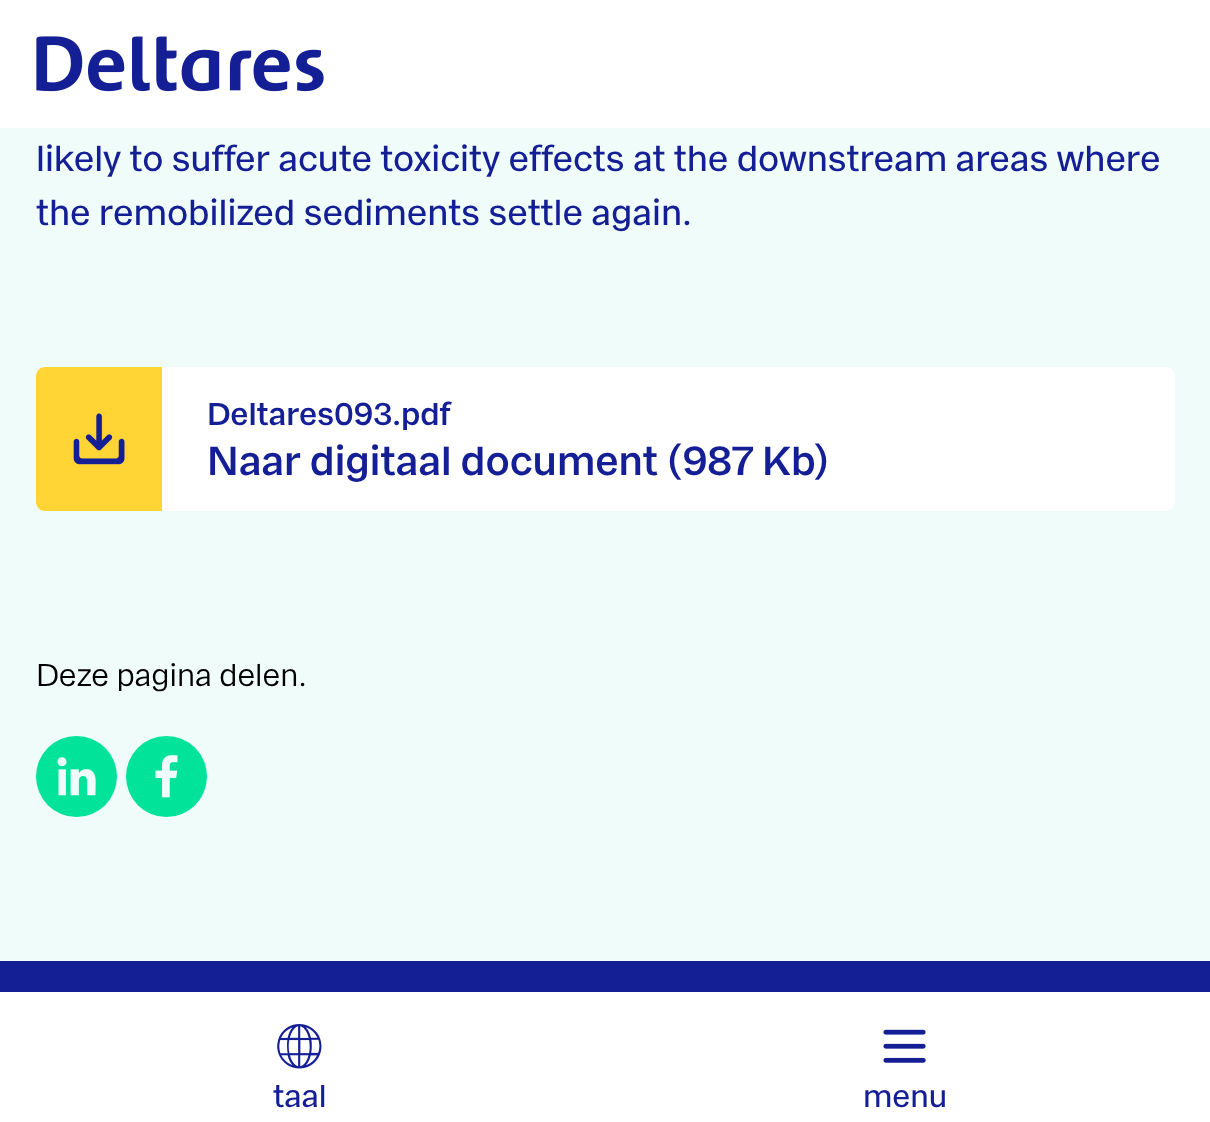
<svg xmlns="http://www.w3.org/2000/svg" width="1210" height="1122">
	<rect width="100%" height="100%" fill="#F0FCFA" />
	<g font-family="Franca" font-size="36" fill="#141E95">
		<text x="36" y="171">likely to suffer acute toxicity effects at the downstream areas where</text>
		<text x="36" y="225">the remobilized sediments settle again.</text>
	</g>
	<path d="M45 367H162V511H45C40 511 36 507 36 502V376C36 371 40 367 45 367Z" fill="#FFD434" />
	<image x="73" y="413" width="52" height="52" href="assets/img1.png" />
	<path d="M162 367H1166C1171 367 1175 371 1175 376V502C1175 507 1171 511 1166 511H162Z" fill="#FFFFFF" />
	<text x="207" y="425" font-family="'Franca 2'" font-size="31.5" fill="#141E95">Deltares093.pdf</text>
	<text x="207" y="475" font-family="'Franca 2'" font-size="40.5" fill="#141E95">Naar digitaal document (987 Kb)</text>
	<text x="36" y="686" font-family="'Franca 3'" font-size="31.5" fill="#000000">Deze pagina delen.</text>
	<circle cx="76.5" cy="776.5" r="40.5" fill="#00E399" />
	<image x="57" y="757" width="39" height="39" href="assets/img2.png" />
	<circle cx="166.5" cy="776.5" r="40.5" fill="#00E399" />
	<image x="155" y="755" width="23" height="43" href="assets/img3.png" />
	<rect x="0" y="961" width="1210" height="31" fill="#141E95" />
	<rect x="0" y="0" width="1210" height="128" fill="#FFFFFF" />
	<image x="36" y="36" width="288" height="56" href="assets/img4.png" />
	<rect x="0" y="992" width="1210" height="130" fill="#FFFFFF" />
	<image x="277" y="1024" width="45" height="45" href="assets/img5.png" />
	<text x="273" y="1107" font-family="Franca" font-size="31.5" fill="#141E95">taal</text>
	<image x="883" y="1029" width="43" height="34" href="assets/img6.png" />
	<text x="863" y="1107" font-family="Franca" font-size="31.5" fill="#141E95">menu</text>
</svg>
